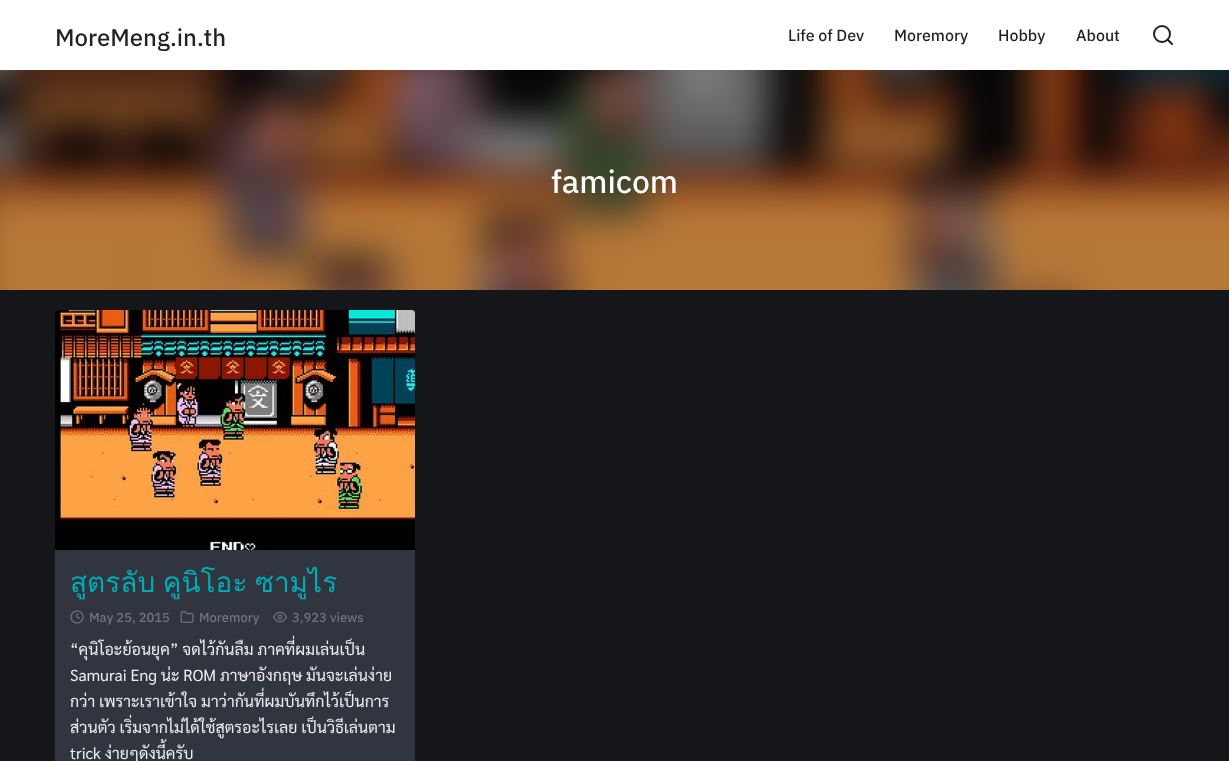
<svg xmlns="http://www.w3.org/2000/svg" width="1229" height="761">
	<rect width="100%" height="100%" fill="#14161A" />
	<rect x="0" y="0" width="1229" height="70" fill="#FFFFFF" />
	<text x="55" y="46" font-family="Anuphan" font-size="24" font-weight="500" fill="#222222">MoreMeng.in.th</text>
	<g font-family="Anuphan" font-size="16" font-weight="500" fill="#222222">
		<text x="788" y="41">Life of Dev</text>
		<text x="894" y="41">Moremory</text>
		<text x="998" y="41">Hobby</text>
		<text x="1076" y="41">About</text>
	</g>
	<circle cx="1162" cy="34" r="8" fill="none" stroke="#222222" stroke-width="2" />
	<path d="M1172 44L1167.5 39.5" fill="none" stroke="#222222" stroke-width="2" stroke-linecap="round" stroke-linejoin="round" />
	<image x="0" y="70" width="1229" height="220" href="assets/img1.png" />
	<text x="551" y="193" font-family="Anuphan" font-size="32" font-weight="500" fill="#FFFFFF">famicom</text>
	<rect x="55" y="310" width="360" height="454" rx="3" fill="#303540" />
	<image x="55" y="310" width="360" height="240" href="assets/img2.png" />
	<text x="70" y="592" word-spacing="-2" font-family="Loma" font-size="28" fill="#00ADB5">สูตรลับ คูนิโอะ ซามูไร</text>
	<image x="70" y="610" width="14" height="14" href="assets/img3.png" />
	<text x="89" y="622" font-family="Anuphan" font-size="13" font-weight="500" fill="#6E7882">May 25, 2015</text>
	<image x="180" y="611" width="14" height="12" href="assets/img4.png" />
	<text x="199" y="622" font-family="Anuphan" font-size="13" font-weight="500" fill="#6E7882">Moremory</text>
	<image x="273" y="611" width="14" height="12" href="assets/img5.png" />
	<text x="292" y="622" font-family="Anuphan" font-size="13" font-weight="500" fill="#6E7882">3,923 views</text>
	<g font-family="Sarabun" font-size="16" fill="#EEEEEE">
		<text x="70" y="655">“คุนิโอะย้อนยุค” จดไว้กันลืม ภาคที่ผมเล่นเป็น</text>
		<text x="70" y="681">Samurai Eng น่ะ ROM ภาษาอังกฤษ มันจะเล่นง่าย</text>
		<text x="70" y="707">กว่า เพราะเราเข้าใจ มาว่ากันที่ผมบันทึกไว้เป็นการ</text>
		<text x="70" y="733">ส่วนตัว เริ่มจากไม่ได้ใช้สูตรอะไรเลย เป็นวิธีเล่นตาม</text>
		<text x="70" y="759">trick ง่ายๆดังนี้ครับ</text>
	</g>
</svg>
